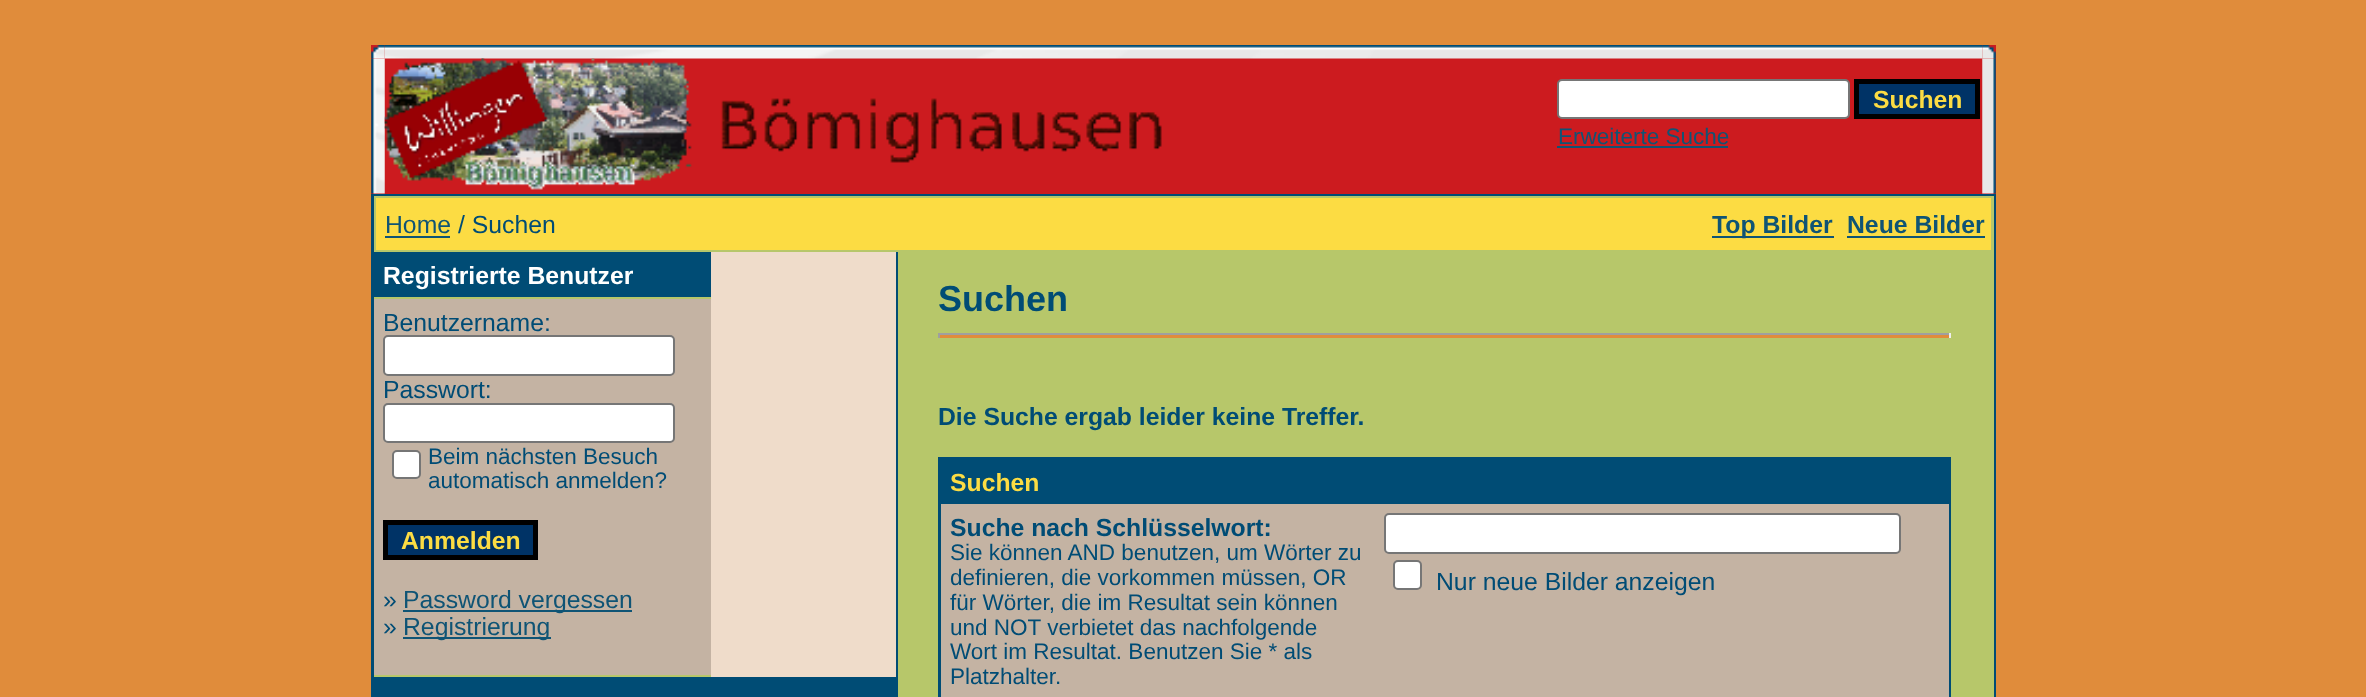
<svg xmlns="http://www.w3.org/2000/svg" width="2366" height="697">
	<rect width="100%" height="100%" fill="#E08C3B" />
	<rect x="371" y="45" width="1625" height="149" fill="#CC1B1F" />
	<image x="371" y="45" width="14" height="14" href="assets/img1.png" />
	<image x="384" y="45" width="1599" height="14" href="assets/img2.png" />
	<image x="1982" y="45" width="14" height="14" href="assets/img3.png" />
	<image x="371" y="58" width="14" height="136" href="assets/img4.png" />
	<image x="384" y="58" width="778" height="132" href="assets/img5.png" />
	<rect x="1558" y="80" width="291" height="38" rx="4" fill="#FFFFFF" stroke="#767676" stroke-width="2" />
	<rect x="1856.5" y="81.5" width="121" height="35" fill="#003366" stroke="#000000" stroke-width="5" />
	<text x="1873" y="108" font-family="Liberation Sans" font-size="24.75" font-weight="700" fill="#FCDC43">Suchen</text>
	<text x="1558" y="144" font-family="Liberation Sans" font-size="22.5" fill="#0F5475">Erweiterte Suche</text>
	<rect x="1557" y="146" width="171" height="2" fill="#0F5475" />
	<image x="1982" y="58" width="14" height="136" href="assets/img6.png" />
	<rect x="371" y="194" width="1625" height="503" fill="#004C75" />
	<rect x="374" y="196" width="1620" height="501" fill="#B7C76A" />
	<rect x="376" y="198" width="1615" height="52" fill="#FCDC43" />
	<text x="385" y="233" font-family="Liberation Sans" font-size="24.75" fill="#0F5475">Home</text>
	<rect x="385" y="236" width="65" height="2" fill="#0F5475" />
	<text x="458" y="233" font-family="Liberation Sans" font-size="24.75" fill="#004C75">/ Suchen</text>
	<rect x="1712" y="236" width="122" height="2" fill="#0F5475" />
	<g font-family="Liberation Sans" font-size="24.75" font-weight="700" fill="#0F5475">
		<text x="1712" y="233">Top Bilder</text>
		<text x="1847" y="233">Neue Bilder</text>
	</g>
	<rect x="1847" y="236" width="138" height="2" fill="#0F5475" />
	<rect x="711" y="252" width="185" height="425" fill="#EFDCCA" />
	<rect x="374" y="252" width="337" height="45" fill="#004C75" />
	<text x="383" y="284" font-family="Liberation Sans" font-size="24.75" font-weight="700" fill="#FFFFFF">Registrierte Benutzer</text>
	<rect x="374" y="299" width="337" height="376" fill="#C4B3A3" />
	<text x="383" y="331" font-family="Liberation Sans" font-size="24.75" fill="#004C75">Benutzername:</text>
	<rect x="384" y="336" width="290" height="39" rx="4" fill="#FFFFFF" stroke="#767676" stroke-width="2" />
	<text x="383" y="398" font-family="Liberation Sans" font-size="24.75" fill="#004C75">Passwort:</text>
	<rect x="384" y="404" width="290" height="38" rx="4" fill="#FFFFFF" stroke="#767676" stroke-width="2" />
	<rect x="393" y="451" width="27" height="27" rx="4" fill="#FFFFFF" stroke="#767676" stroke-width="2" />
	<g font-family="Liberation Sans" font-size="22.5" fill="#004C75">
		<text x="428" y="464">Beim nächsten Besuch</text>
		<text x="428" y="488">automatisch anmelden?</text>
	</g>
	<rect x="385.5" y="522.5" width="150" height="35" fill="#003366" stroke="#000000" stroke-width="5" />
	<text x="401" y="549" font-family="Liberation Sans" font-size="24.75" font-weight="700" fill="#FCDC43">Anmelden</text>
	<text x="383" y="608" font-family="Liberation Sans" font-size="24.75" fill="#004C75">»</text>
	<rect x="403" y="610" width="229" height="2" fill="#0F5475" />
	<text x="403" y="608" font-family="Liberation Sans" font-size="24.75" fill="#0F5475">Password vergessen</text>
	<text x="383" y="635" font-family="Liberation Sans" font-size="24.75" fill="#004C75">»</text>
	<rect x="403" y="637" width="148" height="2" fill="#0F5475" />
	<text x="403" y="635" font-family="Liberation Sans" font-size="24.75" fill="#0F5475">Registrierung</text>
	<rect x="374" y="677" width="522" height="20" fill="#004C75" />
	<rect x="896" y="252" width="2" height="445" fill="#004C75" />
	<text x="938" y="311" font-family="Liberation Sans" font-size="36" font-weight="700" fill="#004C75">Suchen</text>
	<rect x="938" y="335" width="1013" height="3" fill="#E08C3B" />
	<rect x="938" y="333" width="1013" height="2" fill="#9F9F9F" />
	<rect x="1949" y="333" width="2" height="5" fill="#EEEEEE" />
	<rect x="938" y="333" width="2" height="5" fill="#9F9F9F" />
	<text x="938" y="425" font-family="Liberation Sans" font-size="24.75" font-weight="700" fill="#004C75">Die Suche ergab leider keine Treffer.</text>
	<rect x="938" y="457" width="1013" height="240" fill="#004C75" />
	<text x="950" y="491" font-family="Liberation Sans" font-size="24.75" font-weight="700" fill="#FCDC43">Suchen</text>
	<rect x="941" y="504" width="1008" height="193" fill="#C4B3A3" />
	<text x="950" y="536" font-family="Liberation Sans" font-size="24.75" font-weight="700" fill="#004C75">Suche nach Schlüsselwort:</text>
	<g font-family="Liberation Sans" font-size="22.5" fill="#004C75">
		<text x="950" y="560">Sie können AND benutzen, um Wörter zu</text>
		<text x="950" y="585">definieren, die vorkommen müssen, OR</text>
		<text x="950" y="610">für Wörter, die im Resultat sein können</text>
		<text x="950" y="635">und NOT verbietet das nachfolgende</text>
		<text x="950" y="659">Wort im Resultat. Benutzen Sie * als</text>
		<text x="950" y="684">Platzhalter.</text>
	</g>
	<rect x="1385" y="514" width="515" height="39" rx="4" fill="#FFFFFF" stroke="#767676" stroke-width="2" />
	<rect x="1394" y="561" width="27" height="28" rx="4" fill="#FFFFFF" stroke="#767676" stroke-width="2" />
	<text x="1436" y="590" font-family="Liberation Sans" font-size="24.75" fill="#004C75">Nur neue Bilder anzeigen</text>
</svg>
